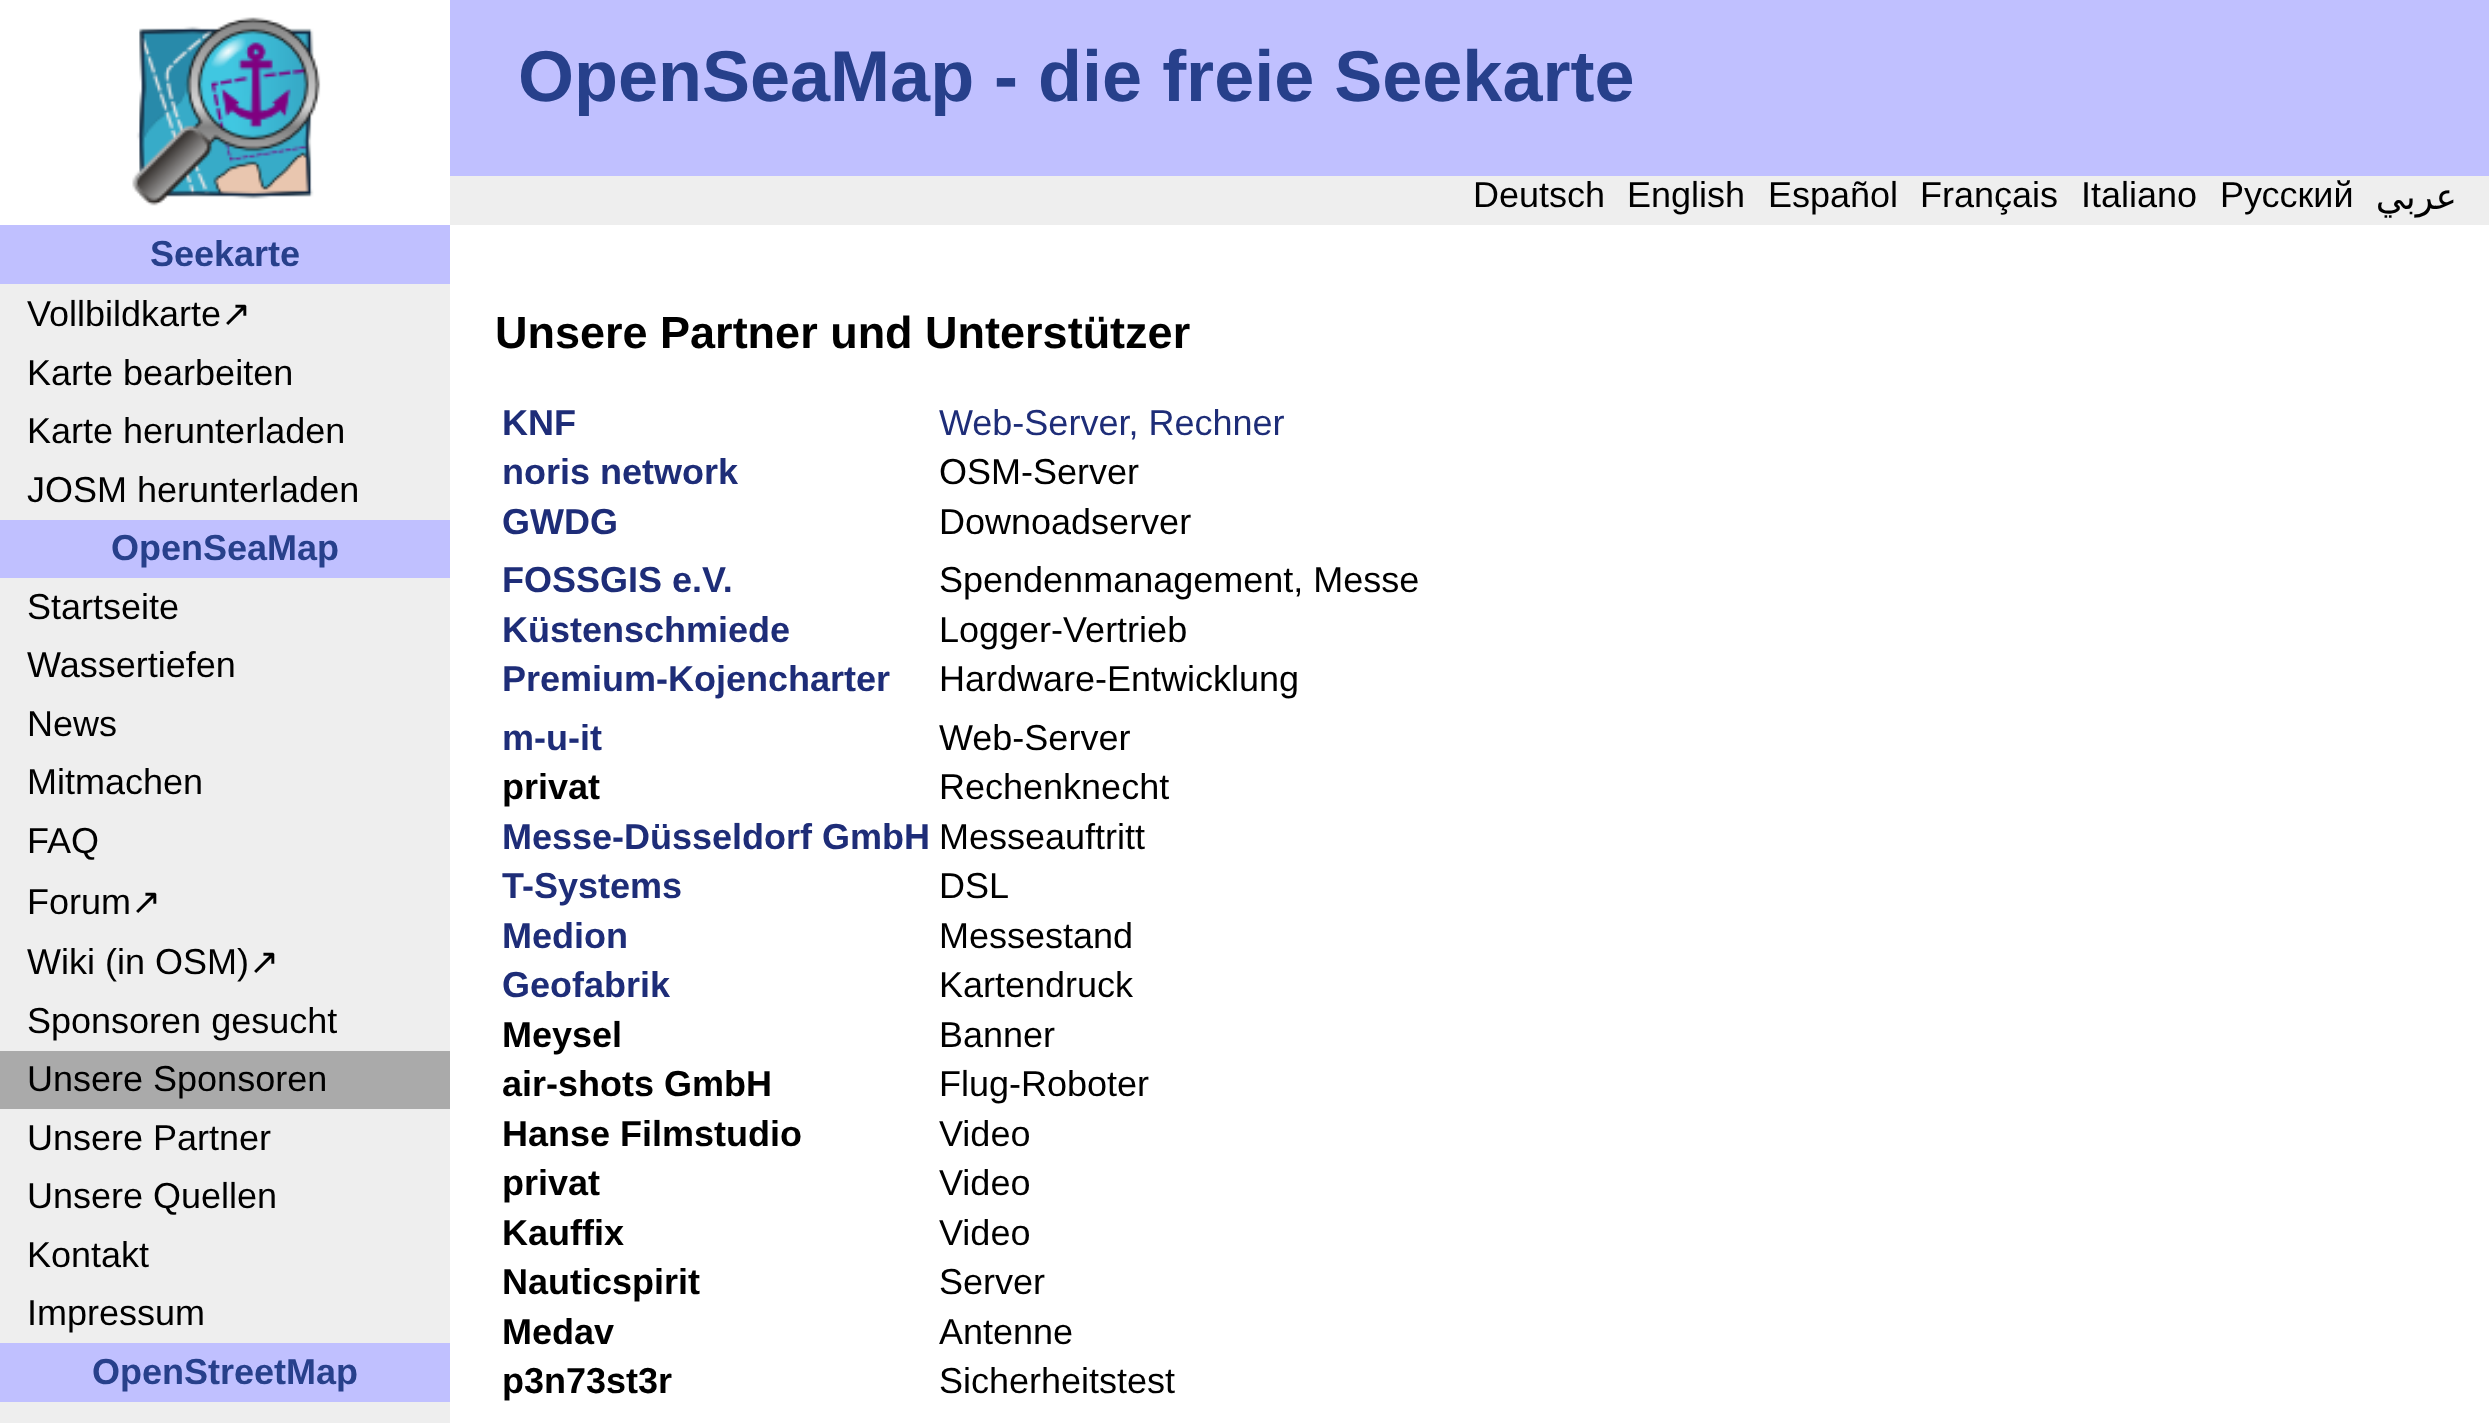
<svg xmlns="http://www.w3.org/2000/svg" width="2489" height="1423">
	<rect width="100%" height="100%" fill="#FFFFFF" />
	<rect x="0" y="284" width="450" height="1139" fill="#EEEEEE" />
	<image x="0" y="0" width="450" height="225" href="assets/img1.png" />
	<rect x="450" y="0" width="2039" height="176" fill="#C0C0FF" />
	<text x="518" y="101" font-family="Liberation Sans" font-size="72" font-weight="700" fill="#27408B">OpenSeaMap - die freie Seekarte</text>
	<rect x="450" y="176" width="2039" height="49" fill="#EEEEEE" />
	<g font-family="Liberation Sans" font-size="36" fill="#000000">
		<text x="1473" y="207">Deutsch</text>
		<text x="1627" y="207">English</text>
		<text x="1768" y="207">Español</text>
		<text x="1920" y="207">Français</text>
		<text x="2081" y="207">Italiano</text>
		<text x="2220" y="207">Русский</text>
	</g>
	<text x="2457" y="209" font-family="DejaVu Sans" font-size="36" direction="rtl" fill="#000000">عربي</text>
	<rect x="0" y="225" width="450" height="59" fill="#C0C0FF" />
	<text x="150" y="266" font-family="Liberation Sans" font-size="36" font-weight="700" fill="#27408B">Seekarte</text>
	<text x="27" y="326" font-family="Liberation Sans" font-size="36" fill="#000000">Vollbildkarte</text>
	<text x="221" y="326" font-family="DejaVu Sans" font-size="36" fill="#000000">↗</text>
	<g font-family="Liberation Sans" font-size="36" fill="#000000">
		<text x="27" y="385">Karte bearbeiten</text>
		<text x="27" y="443">Karte herunterladen</text>
		<text x="27" y="502">JOSM herunterladen</text>
	</g>
	<rect x="0" y="520" width="450" height="58" fill="#C0C0FF" />
	<text x="111" y="560" font-family="Liberation Sans" font-size="36" font-weight="700" fill="#27408B">OpenSeaMap</text>
	<g font-family="Liberation Sans" font-size="36" fill="#000000">
		<text x="27" y="619">Startseite</text>
		<text x="27" y="677">Wassertiefen</text>
		<text x="27" y="736">News</text>
		<text x="27" y="794">Mitmachen</text>
		<text x="27" y="853">FAQ</text>
		<text x="27" y="914">Forum</text>
	</g>
	<text x="131" y="914" font-family="DejaVu Sans" font-size="36" fill="#000000">↗</text>
	<text x="27" y="974" font-family="Liberation Sans" font-size="36" fill="#000000">Wiki (in OSM)</text>
	<text x="249" y="974" font-family="DejaVu Sans" font-size="36" fill="#000000">↗</text>
	<text x="27" y="1033" font-family="Liberation Sans" font-size="36" fill="#000000">Sponsoren gesucht</text>
	<rect x="0" y="1051" width="450" height="58" fill="#AAAAAA" />
	<g font-family="Liberation Sans" font-size="36" fill="#000000">
		<text x="27" y="1091">Unsere Sponsoren</text>
		<text x="27" y="1150">Unsere Partner</text>
		<text x="27" y="1208">Unsere Quellen</text>
		<text x="27" y="1267">Kontakt</text>
		<text x="27" y="1325">Impressum</text>
	</g>
	<rect x="0" y="1343" width="450" height="59" fill="#C0C0FF" />
	<text x="92" y="1384" font-family="Liberation Sans" font-size="36" font-weight="700" fill="#27408B">OpenStreetMap</text>
	<text x="495" y="348" font-family="Liberation Sans" font-size="45" font-weight="700" fill="#000000">Unsere Partner und Unterstützer</text>
	<text x="502" y="435" font-family="Liberation Sans" font-size="36" font-weight="700" fill="#1E2D78">KNF</text>
	<text x="939" y="435" font-family="Liberation Sans" font-size="36" fill="#1E2D78">Web-Server, Rechner</text>
	<text x="502" y="484" font-family="Liberation Sans" font-size="36" font-weight="700" fill="#1E2D78">noris network</text>
	<text x="939" y="484" font-family="Liberation Sans" font-size="36" fill="#000000">OSM-Server</text>
	<text x="502" y="534" font-family="Liberation Sans" font-size="36" font-weight="700" fill="#1E2D78">GWDG</text>
	<text x="939" y="534" font-family="Liberation Sans" font-size="36" fill="#000000">Downoadserver</text>
	<text x="502" y="592" font-family="Liberation Sans" font-size="36" font-weight="700" fill="#1E2D78">FOSSGIS e.V.</text>
	<text x="939" y="592" font-family="Liberation Sans" font-size="36" fill="#000000">Spendenmanagement, Messe</text>
	<text x="502" y="642" font-family="Liberation Sans" font-size="36" font-weight="700" fill="#1E2D78">Küstenschmiede</text>
	<text x="939" y="642" font-family="Liberation Sans" font-size="36" fill="#000000">Logger-Vertrieb</text>
	<text x="502" y="691" font-family="Liberation Sans" font-size="36" font-weight="700" fill="#1E2D78">Premium-Kojencharter</text>
	<text x="939" y="691" font-family="Liberation Sans" font-size="36" fill="#000000">Hardware-Entwicklung</text>
	<text x="502" y="750" font-family="Liberation Sans" font-size="36" font-weight="700" fill="#1E2D78">m-u-it</text>
	<text x="939" y="750" font-family="Liberation Sans" font-size="36" fill="#000000">Web-Server</text>
	<text x="502" y="799" font-family="Liberation Sans" font-size="36" font-weight="700" fill="#000000">privat</text>
	<text x="939" y="799" font-family="Liberation Sans" font-size="36" fill="#000000">Rechenknecht</text>
	<text x="502" y="849" font-family="Liberation Sans" font-size="36" font-weight="700" fill="#1E2D78">Messe-Düsseldorf GmbH</text>
	<text x="939" y="849" font-family="Liberation Sans" font-size="36" fill="#000000">Messeauftritt</text>
	<text x="502" y="898" font-family="Liberation Sans" font-size="36" font-weight="700" fill="#1E2D78">T-Systems</text>
	<text x="939" y="898" font-family="Liberation Sans" font-size="36" fill="#000000">DSL</text>
	<text x="502" y="948" font-family="Liberation Sans" font-size="36" font-weight="700" fill="#1E2D78">Medion</text>
	<text x="939" y="948" font-family="Liberation Sans" font-size="36" fill="#000000">Messestand</text>
	<text x="502" y="997" font-family="Liberation Sans" font-size="36" font-weight="700" fill="#1E2D78">Geofabrik</text>
	<text x="939" y="997" font-family="Liberation Sans" font-size="36" fill="#000000">Kartendruck</text>
	<text x="502" y="1047" font-family="Liberation Sans" font-size="36" font-weight="700" fill="#000000">Meysel</text>
	<text x="939" y="1047" font-family="Liberation Sans" font-size="36" fill="#000000">Banner</text>
	<text x="502" y="1096" font-family="Liberation Sans" font-size="36" font-weight="700" fill="#000000">air-shots GmbH</text>
	<text x="939" y="1096" font-family="Liberation Sans" font-size="36" fill="#000000">Flug-Roboter</text>
	<text x="502" y="1146" font-family="Liberation Sans" font-size="36" font-weight="700" fill="#000000">Hanse Filmstudio</text>
	<text x="939" y="1146" font-family="Liberation Sans" font-size="36" fill="#000000">Video</text>
	<text x="502" y="1195" font-family="Liberation Sans" font-size="36" font-weight="700" fill="#000000">privat</text>
	<text x="939" y="1195" font-family="Liberation Sans" font-size="36" fill="#000000">Video</text>
	<text x="502" y="1245" font-family="Liberation Sans" font-size="36" font-weight="700" fill="#000000">Kauffix</text>
	<text x="939" y="1245" font-family="Liberation Sans" font-size="36" fill="#000000">Video</text>
	<text x="502" y="1294" font-family="Liberation Sans" font-size="36" font-weight="700" fill="#000000">Nauticspirit</text>
	<text x="939" y="1294" font-family="Liberation Sans" font-size="36" fill="#000000">Server</text>
	<text x="502" y="1344" font-family="Liberation Sans" font-size="36" font-weight="700" fill="#000000">Medav</text>
	<text x="939" y="1344" font-family="Liberation Sans" font-size="36" fill="#000000">Antenne</text>
	<text x="502" y="1393" font-family="Liberation Sans" font-size="36" font-weight="700" fill="#000000">p3n73st3r</text>
	<text x="939" y="1393" font-family="Liberation Sans" font-size="36" fill="#000000">Sicherheitstest</text>
</svg>
